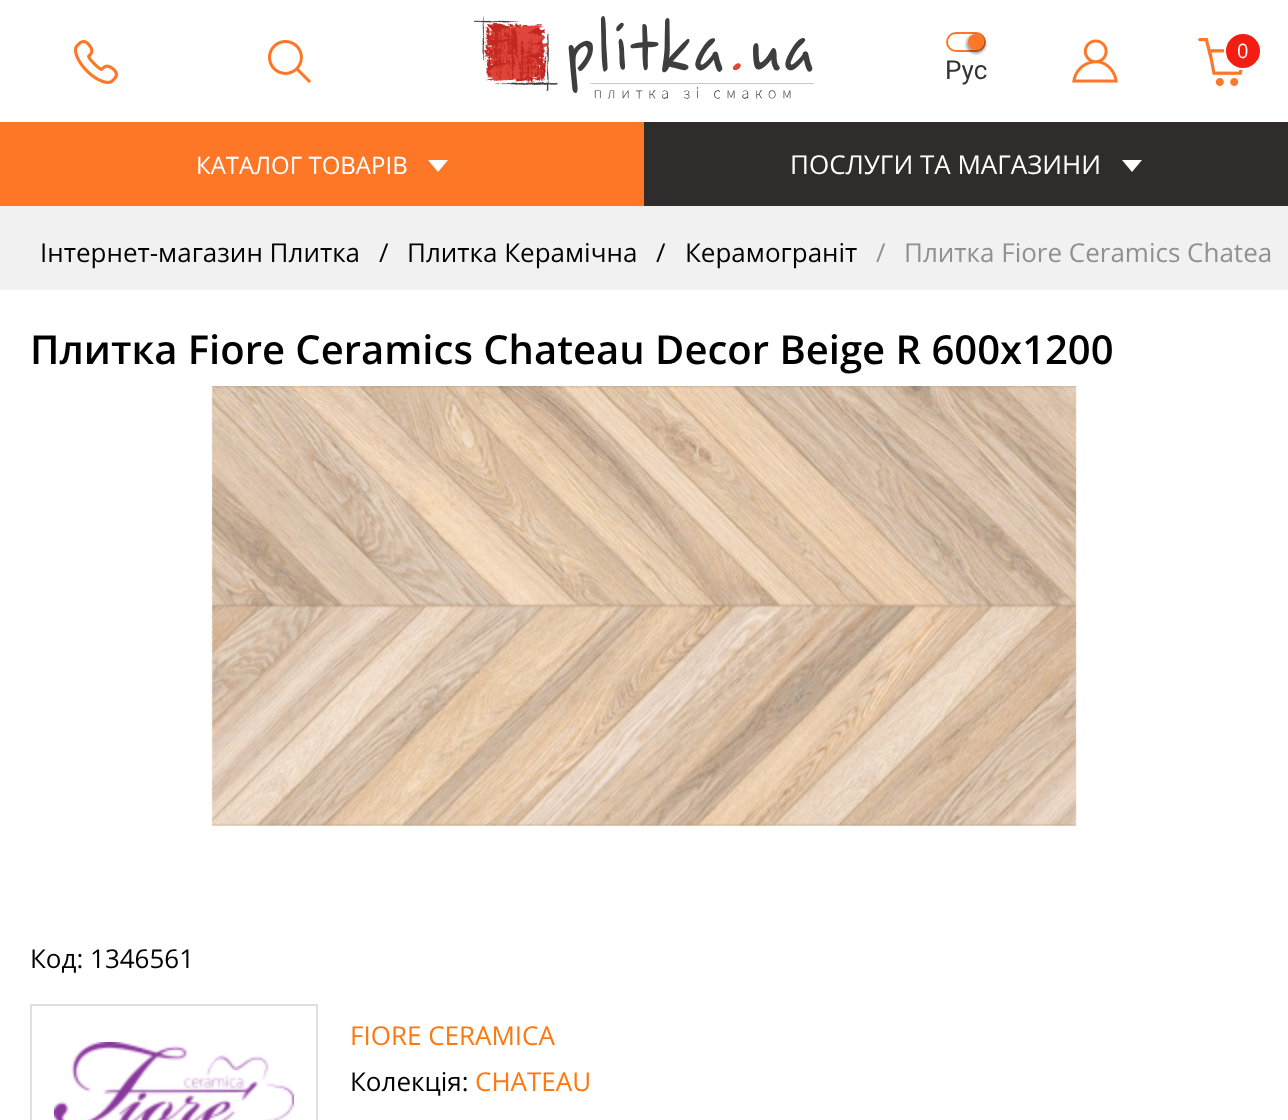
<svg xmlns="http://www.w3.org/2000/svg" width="1288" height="1120">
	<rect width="100%" height="100%" fill="#FFFFFF" />
	<image x="74" y="40" width="44" height="44" href="assets/img1.png" />
	<image x="268" y="40" width="43" height="43" href="assets/img2.png" />
	<image x="474" y="16" width="340" height="83" href="assets/img3.png" />
	<image x="1072" y="39" width="46" height="44" href="assets/img4.png" />
	<image x="1198" y="38" width="45" height="48" href="assets/img5.png" />
	<circle cx="1243" cy="51" r="18" fill="#F31E11" stroke="#FFFFFF" stroke-width="2" />
	<text x="1237" y="58" font-family="Open Sans" font-size="20" fill="#FFFFFF">0</text>
	<rect x="947" y="33" width="38" height="18" rx="9" fill="none" stroke="#FD7727" stroke-width="2" />
	<rect x="966" y="34" width="20" height="20" rx="10" fill="#000000" fill-opacity="0.18" filter="blur(1px)" />
	<rect x="966" y="34" width="20" height="20" rx="10" fill="#000000" fill-opacity="0.18" filter="blur(1px)" />
	<circle cx="976" cy="42" r="8" fill="#FD7727" />
	<text x="945" y="79" font-family="Roboto" font-size="26" fill="#333333">Рус</text>
	<rect x="644" y="122" width="644" height="84" fill="#2F2C2B" />
	<rect x="0" y="122" width="644" height="84" fill="#FD7727" />
	<text x="196" y="174" font-family="Open Sans" font-size="24" fill="#FFFFFF">КАТАЛОГ ТОВАРІВ</text>
	<path d="M428 160H448L438 172Z" fill="#FFFFFF" />
	<text x="790" y="174" font-family="Open Sans" font-size="26" fill="#FFFFFF">ПОСЛУГИ ТА МАГАЗИНИ</text>
	<path d="M1122 160H1142L1132 172Z" fill="#FFFFFF" />
	<rect x="0" y="206" width="1288" height="84" fill="#F1F1F1" />
	<g font-family="Open Sans" font-size="26" fill="#000000">
		<text x="40" y="262">Інтернет-магазин Плитка</text>
		<text x="379" y="262">/</text>
		<text x="407" y="262">Плитка Керамічна</text>
		<text x="656" y="262">/</text>
		<text x="685" y="262">Керамограніт</text>
	</g>
	<g font-family="Open Sans" font-size="26" fill="#909090">
		<text x="876" y="262">/</text>
		<text x="904" y="262">Плитка Fiore Ceramics Chatea</text>
	</g>
	<text x="30" y="364" font-family="Open Sans" font-size="40" font-weight="600" fill="#000000">Плитка Fiore Ceramics Chateau Decor Beige R 600х1200</text>
	<image x="211" y="386" width="866" height="440" href="assets/img6.png" />
	<text x="30" y="968" font-family="Open Sans" font-size="26" fill="#000000">Код: 1346561</text>
	<rect x="31" y="1005" width="286" height="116" fill="none" stroke="#E0E0E0" stroke-width="2" />
	<image x="54" y="1042" width="240" height="78" href="assets/img7.png" />
	<text x="350" y="1045" font-family="Open Sans" font-size="26" fill="#FF770D">FIORE CERAMICA</text>
	<text x="350" y="1091" font-family="Open Sans" font-size="26" fill="#000000">Колекція:</text>
	<text x="475" y="1091" font-family="Open Sans" font-size="26" fill="#FF770D">CHATEAU</text>
</svg>
